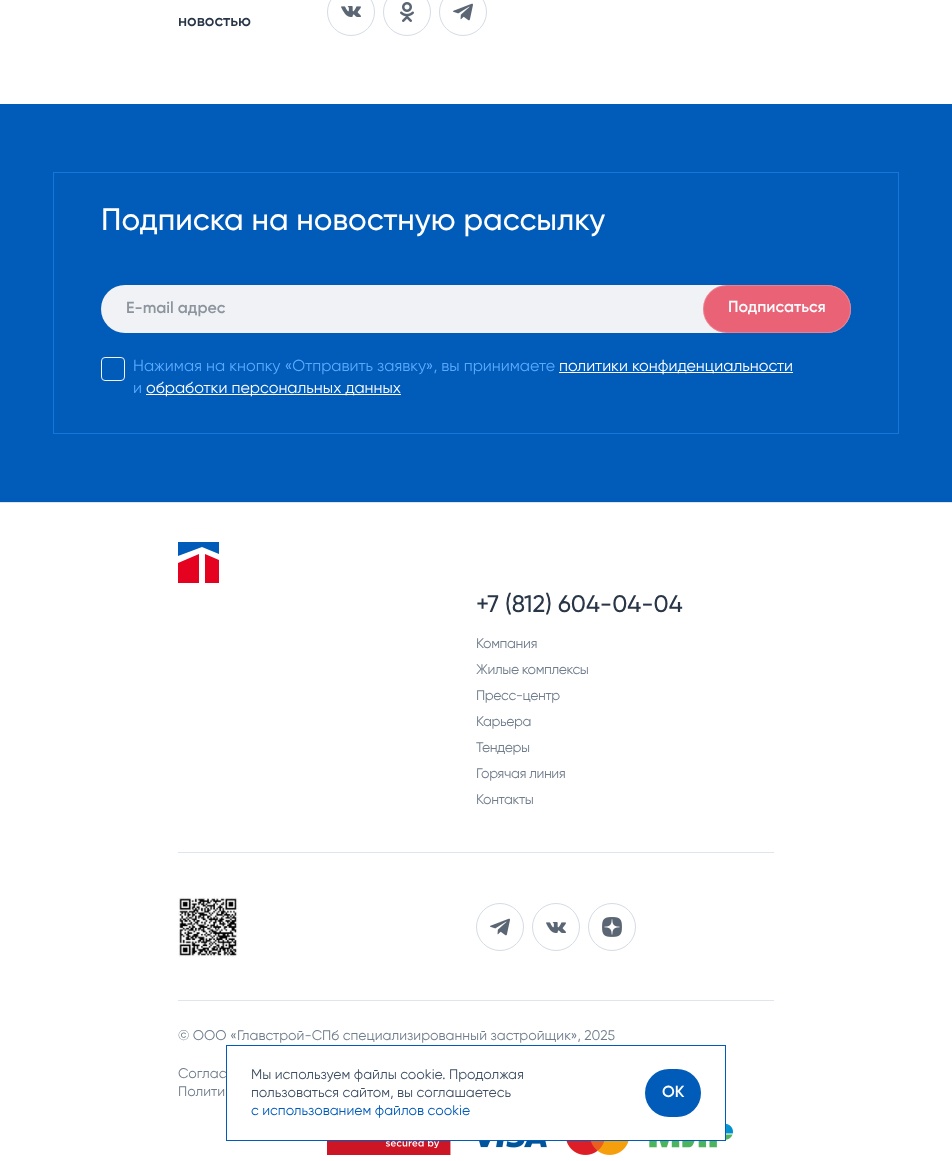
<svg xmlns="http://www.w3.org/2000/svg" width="952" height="1161">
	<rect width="100%" height="100%" fill="#FFFFFF" />
	<text x="178" y="26" font-family="Gilroy" font-size="16" font-weight="600" fill="#283647">новостью</text>
	<circle cx="351" cy="12" r="23.5" fill="none" stroke="#D5DCE5" />
	<image x="341" y="6" width="20" height="11" href="assets/img1.png" />
	<circle cx="407" cy="12" r="23.5" fill="none" stroke="#D5DCE5" />
	<image x="400" y="2" width="14" height="20" href="assets/img2.png" />
	<circle cx="463" cy="12" r="23.5" fill="none" stroke="#D5DCE5" />
	<image x="453" y="3" width="20" height="18" href="assets/img3.png" />
	<rect x="0" y="104" width="952" height="398" fill="#005BB9" />
	<rect x="53.5" y="172.5" width="845" height="261" fill="none" stroke="#1776D9" />
	<text x="101" y="230" font-family="Gilroy" font-size="31" font-weight="500" fill="#FFFFFF">Подписка на новостную рассылку</text>
	<rect x="101" y="285" width="750" height="48" rx="24" fill="#F0F2F5" />
	<text x="126" y="313" font-family="Gilroy" font-size="16" font-weight="600" fill="#8C949E">E-mail адрес</text>
	<rect x="703" y="285" width="148" height="48" rx="24" fill="#E40220" fill-opacity="0.6" />
	<rect x="703.5" y="285.5" width="147" height="47" rx="23.5" fill="none" stroke="#FFFFFF" stroke-opacity="0.18" />
	<text x="728" y="312" font-family="Gilroy" font-size="16" font-weight="600" fill="#F9FAFB">Подписаться</text>
	<rect x="101.5" y="357.5" width="23" height="23" rx="3.5" fill="none" stroke="#F0F2F5" />
	<text x="133" y="371" font-family="Gilroy" font-size="16" fill="#5AABFF">Нажимая на кнопку «Отправить заявку», вы принимаете</text>
	<rect x="559" y="372" width="234" height="1" fill="#FFFFFF" />
	<text x="559" y="371" font-family="Gilroy" font-size="16" fill="#FFFFFF">политики конфиденциальности</text>
	<text x="133" y="393" font-family="Gilroy" font-size="16" fill="#5AABFF">и</text>
	<rect x="146" y="394" width="255" height="1" fill="#FFFFFF" />
	<text x="146" y="393" font-family="Gilroy" font-size="16" fill="#FFFFFF">обработки персональных данных</text>
	<rect x="0" y="502" width="952" height="1" fill="#DFE5ED" />
	<path d="M219 560L205 554V583H219ZM178 563V583H199V554Z" fill="#E40220" />
	<path d="M178 542V556L202 547L219 554V542Z" fill="#005BB9" />
	<text x="476" y="612" font-family="Gilroy" font-size="24" font-weight="500" fill="#283647">+7 (812) 604-04-04</text>
	<g font-family="Gilroy" font-size="14" letter-spacing="-0.4" fill="#707D8C">
		<text x="476" y="648">Компания</text>
		<text x="476" y="674">Жилые комплексы</text>
		<text x="476" y="700">Пресс-центр</text>
		<text x="476" y="726">Карьера</text>
		<text x="476" y="752">Тендеры</text>
		<text x="476" y="778">Горячая линия</text>
		<text x="476" y="804">Контакты</text>
	</g>
	<rect x="178" y="852" width="596" height="1" fill="#DFE5ED" />
	<image x="178" y="897" width="60" height="60" href="assets/img4.png" />
	<circle cx="500" cy="927" r="23.5" fill="none" stroke="#D5DCE5" />
	<image x="490" y="918" width="20" height="18" href="assets/img3.png" />
	<circle cx="556" cy="927" r="23.5" fill="none" stroke="#D5DCE5" />
	<image x="546" y="922" width="20" height="11" href="assets/img5.png" />
	<circle cx="612" cy="927" r="23.5" fill="none" stroke="#D5DCE5" />
	<image x="602" y="917" width="20" height="20" href="assets/img6.png" />
	<rect x="178" y="1000" width="596" height="1" fill="#DFE5ED" />
	<g font-family="Gilroy" font-size="14" fill="#707D8C">
		<text x="178" y="1040">© ООО «Главстрой-СПб специализированный застройщик», 2025</text>
		<text x="178" y="1078">Соглас</text>
		<text x="178" y="1096">Полити</text>
	</g>
	<image x="327" y="1123" width="406" height="32" href="assets/img7.png" />
	<rect x="327" y="1123" width="398" height="17" fill="#FFFFFF" />
	<rect x="226.5" y="1045.5" width="499" height="95" fill="none" stroke="#005BB9" />
	<g font-family="Gilroy" font-size="14" fill="#3F4F63">
		<text x="251" y="1079">Мы используем файлы cookie. Продолжая</text>
		<text x="251" y="1097">пользоваться сайтом, вы соглашаетесь</text>
	</g>
	<text x="251" y="1115" font-family="Gilroy" font-size="14" fill="#005BB9">с использованием файлов cookie</text>
	<rect x="645" y="1069" width="56" height="48" rx="24" fill="#005BB9" />
	<text x="662" y="1097" font-family="Gilroy" font-size="16" font-weight="600" fill="#FFFFFF">OK</text>
</svg>
